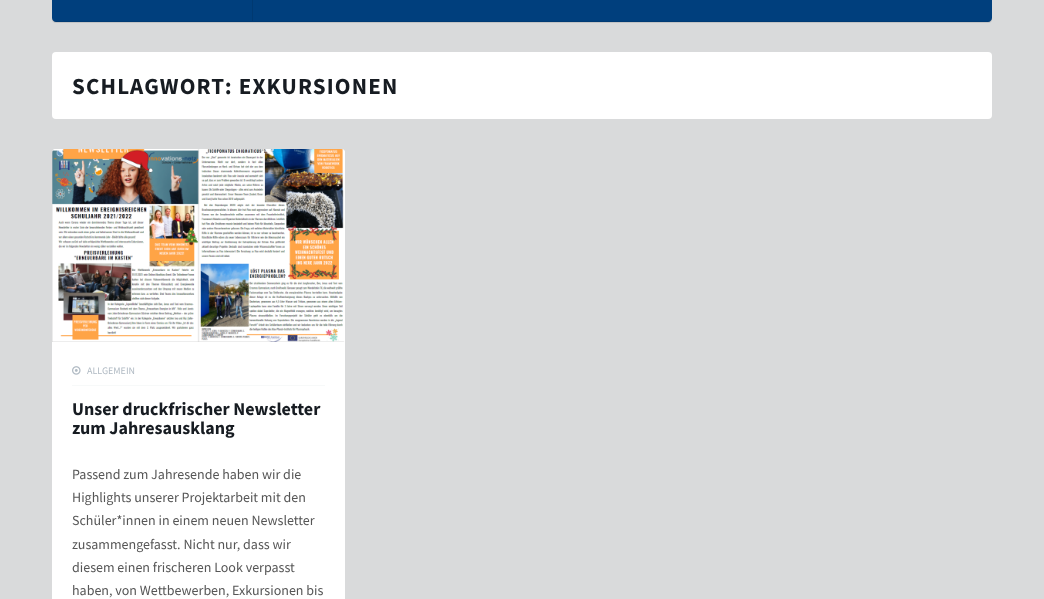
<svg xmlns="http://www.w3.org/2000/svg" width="1044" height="599">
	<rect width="100%" height="100%" fill="#D9DADB" />
	<rect x="52" y="-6" width="940" height="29" rx="4" fill="#000000" fill-opacity="0.1" filter="blur(0.5px)" />
	<path d="M52-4H992V18C992 20 990 22 988 22H56C54 22 52 20 52 18Z" fill="#003F7D" />
	<path d="M56 22H988C990 22 992 20 992 18C992 20 990 21 988 21H56C54 21 52 20 52 18C52 20 54 22 56 22Z" fill="#000000" fill-opacity="0.07" />
	<rect x="252" y="0" width="1" height="21" fill="#003971" />
	<rect x="52" y="52" width="940" height="67" rx="4" fill="#FFFFFF" />
	<text x="72" y="94" font-family="Source Sans Pro" font-size="23" font-weight="700" letter-spacing="1.15" fill="#171C22">SCHLAGWORT: EXKURSIONEN</text>
	<rect x="52" y="149" width="293" height="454" rx="4" fill="#FFFFFF" />
	<image x="52" y="149" width="293" height="193" href="assets/img1.png" />
	<rect x="72" y="385" width="253" height="1" fill="#F7F9F9" />
	<image x="72" y="366" width="9" height="9" href="assets/img2.png" />
	<text x="87" y="374" font-family="Source Sans Pro" font-size="10" fill="#B0BAC3">ALLGEMEIN</text>
	<g font-family="Source Sans Pro" font-size="18" font-weight="700" fill="#171C22">
		<text x="72" y="415">Unser druckfrischer Newsletter</text>
		<text x="72" y="434">zum Jahresausklang</text>
	</g>
	<g font-family="Source Sans Pro" font-size="14" fill="#565656">
		<text x="72" y="479">Passend zum Jahresende haben wir die</text>
		<text x="72" y="502">Highlights unserer Projektarbeit mit den</text>
		<text x="72" y="525">Schüler*innen in einem neuen Newsletter</text>
		<text x="72" y="549">zusammengefasst. Nicht nur, dass wir</text>
		<text x="72" y="572">diesem einen frischeren Look verpasst</text>
		<text x="72" y="595">haben, von Wettbewerben, Exkursionen bis</text>
	</g>
</svg>
